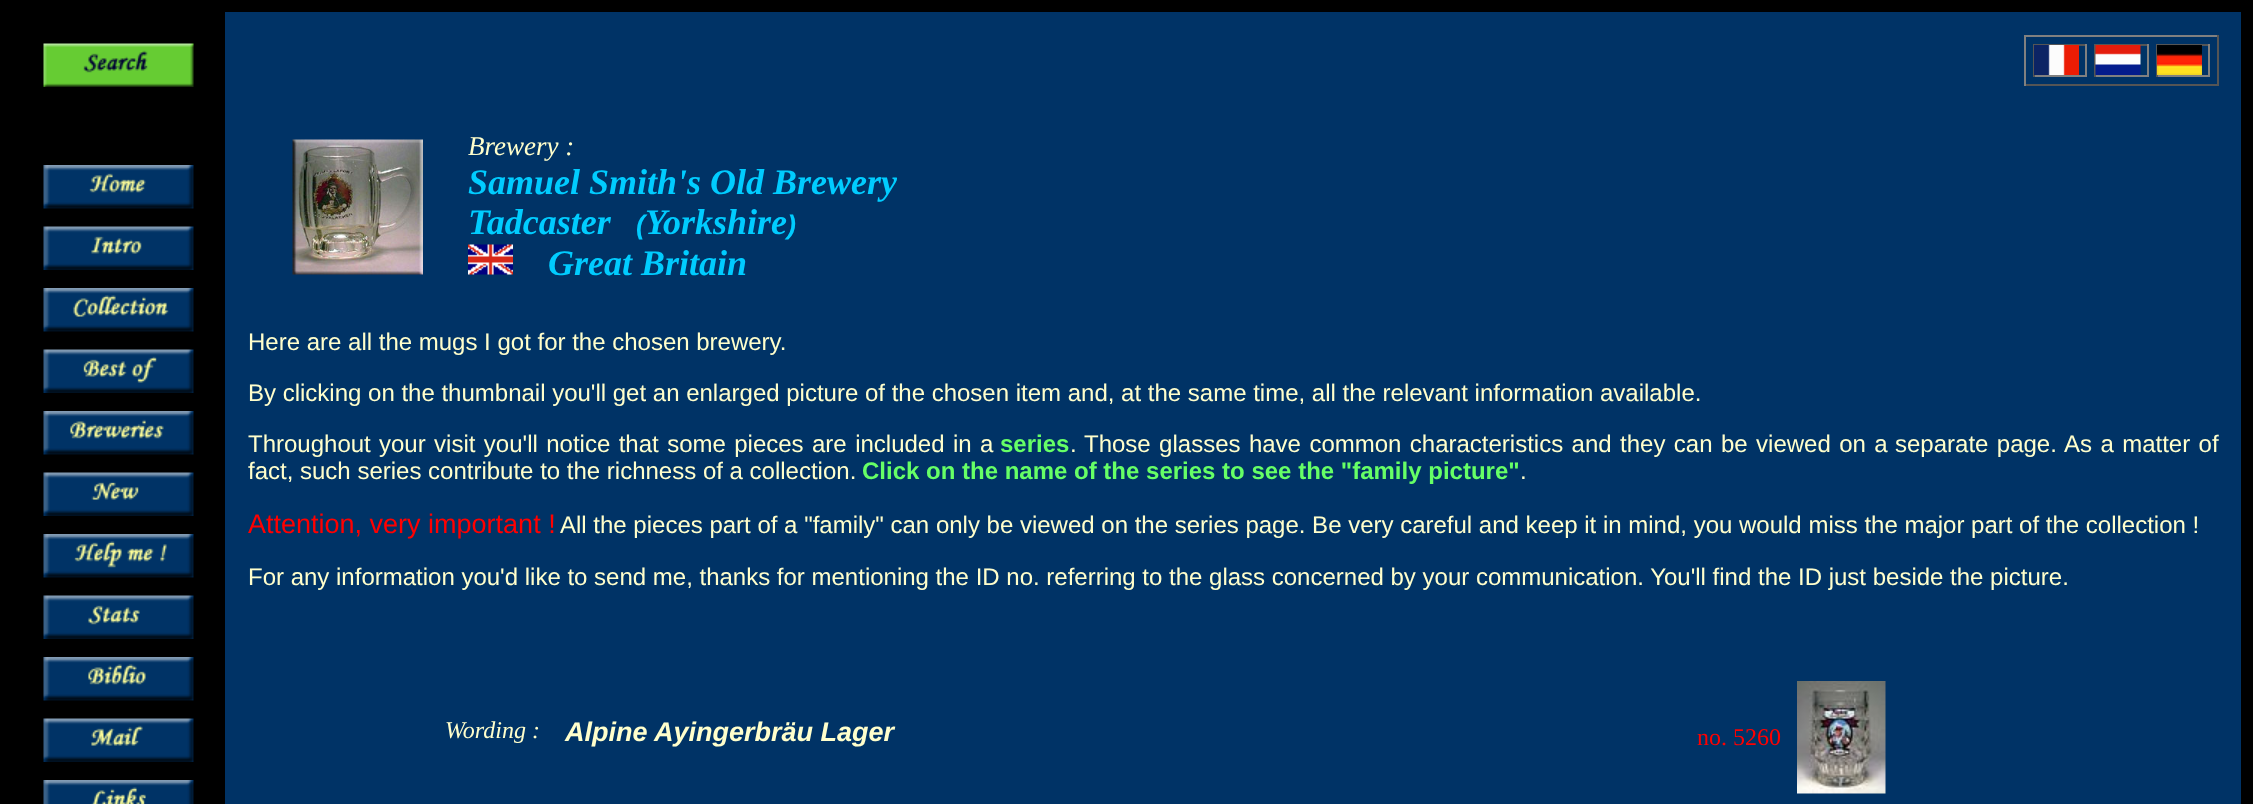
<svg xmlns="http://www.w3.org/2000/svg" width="2253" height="804">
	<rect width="100%" height="100%" fill="#000000" />
	<image x="43" y="43" width="151" height="44" href="assets/img1.png" />
	<image x="43" y="165" width="151" height="44" href="assets/img2.png" />
	<image x="43" y="226" width="151" height="44" href="assets/img3.png" />
	<image x="43" y="288" width="151" height="44" href="assets/img4.png" />
	<image x="43" y="349" width="151" height="44" href="assets/img5.png" />
	<image x="43" y="411" width="151" height="44" href="assets/img6.png" />
	<image x="43" y="472" width="151" height="44" href="assets/img7.png" />
	<image x="43" y="534" width="151" height="44" href="assets/img8.png" />
	<image x="43" y="595" width="151" height="44" href="assets/img9.png" />
	<image x="43" y="657" width="151" height="44" href="assets/img10.png" />
	<image x="43" y="718" width="151" height="44" href="assets/img11.png" />
	<image x="43" y="780" width="151" height="24" href="assets/img12.png" />
	<rect x="225" y="12" width="2016" height="792" fill="#003366" />
	<rect x="2024" y="35" width="195" height="2" fill="#808080" />
	<rect x="2217" y="35" width="2" height="51" fill="#555555" />
	<rect x="2024" y="84" width="195" height="2" fill="#555555" />
	<rect x="2024" y="35" width="2" height="51" fill="#808080" />
	<rect x="2033" y="44" width="54" height="2" fill="#555555" />
	<rect x="2085" y="44" width="2" height="33" fill="#808080" />
	<rect x="2033" y="75" width="54" height="2" fill="#808080" />
	<rect x="2033" y="44" width="2" height="33" fill="#555555" />
	<image x="2034" y="45" width="45" height="30" href="assets/img13.png" />
	<rect x="2094" y="44" width="54" height="2" fill="#555555" />
	<rect x="2147" y="44" width="2" height="33" fill="#808080" />
	<rect x="2094" y="75" width="54" height="2" fill="#808080" />
	<rect x="2094" y="44" width="2" height="33" fill="#555555" />
	<image x="2095" y="45" width="46" height="30" href="assets/img14.png" />
	<rect x="2156" y="44" width="54" height="2" fill="#555555" />
	<rect x="2208" y="44" width="2" height="33" fill="#808080" />
	<rect x="2156" y="75" width="54" height="2" fill="#808080" />
	<rect x="2156" y="44" width="2" height="33" fill="#555555" />
	<image x="2157" y="45" width="45" height="30" href="assets/img15.png" />
	<image x="292" y="139" width="131" height="136" href="assets/img16.png" />
	<text x="468" y="155" font-family="Liberation Serif" font-size="27" font-style="italic" fill="#FFFFCC">Brewery :</text>
	<g font-family="Liberation Serif" font-size="36" font-weight="700" font-style="italic" fill="#00CCFF">
		<text x="468" y="194">Samuel Smith's Old Brewery</text>
		<text x="468" y="234">Tadcaster</text>
	</g>
	<text x="636" y="234" font-family="Liberation Sans" font-size="27" font-weight="700" font-style="italic" fill="#00CCFF">(</text>
	<text x="645" y="234" font-family="Liberation Serif" font-size="36" font-weight="700" font-style="italic" fill="#00CCFF">Yorkshire</text>
	<text x="787" y="234" font-family="Liberation Sans" font-size="27" font-weight="700" font-style="italic" fill="#00CCFF">)</text>
	<image x="468" y="244" width="45" height="31" href="assets/img17.png" />
	<text x="548" y="275" font-family="Liberation Serif" font-size="36" font-weight="700" font-style="italic" fill="#00CCFF">Great Britain</text>
	<g font-family="Liberation Sans" font-size="24" fill="#FFFFCC">
		<text x="248" y="350">Here are all the mugs I got for the chosen brewery.</text>
		<text x="248" y="401">By clicking on the thumbnail you'll get an enlarged picture of the chosen item and, at the same time, all the relevant information available.</text>
		<text x="248" y="452">Throughout</text>
		<text x="379" y="452" word-spacing="1.75">your visit you'll notice that some pieces are included in a</text>
	</g>
	<text x="1000" y="452" font-family="Liberation Sans" font-size="24" font-weight="700" fill="#66FF66">series</text>
	<g font-family="Liberation Sans" font-size="24" fill="#FFFFCC">
		<text x="1070" y="452">.</text>
		<text x="1084" y="452" word-spacing="1.75">Those glasses have common characteristics and they can be viewed on a</text>
		<text x="1895" y="452" word-spacing="1.75">separate page. As a matter of</text>
		<text x="248" y="479">fact, such series contribute to the richness of a collection.</text>
	</g>
	<text x="862" y="479" font-family="Liberation Sans" font-size="24" font-weight="700" fill="#66FF66">Click on the name of the series to see the "family picture"</text>
	<text x="1520" y="479" font-family="Liberation Sans" font-size="24" fill="#FFFFCC">.</text>
	<text x="248" y="533" font-family="Liberation Sans" font-size="27" fill="#FF0000">Attention, very important !</text>
	<g font-family="Liberation Sans" font-size="24" fill="#FFFFCC">
		<text x="560" y="533">All the pieces part of a "family" can only be viewed on the series page. Be very careful and keep it in mind, you would miss the major part of the collection !</text>
		<text x="248" y="585">For any information you'd like to send me, thanks for mentioning the ID no. referring to the glass concerned by your communication. You'll find the ID just beside the picture.</text>
	</g>
	<text x="445" y="738" font-family="Liberation Serif" font-size="24" font-style="italic" fill="#FFFFCC">Wording :</text>
	<text x="565" y="741" font-family="Liberation Sans" font-size="27" font-weight="700" font-style="italic" fill="#FFFFCC">Alpine Ayingerbräu Lager</text>
	<text x="1697" y="745" font-family="Liberation Serif" font-size="24" fill="#FF0000">no. 5260</text>
	<image x="1797" y="681" width="89" height="113" href="assets/img18.png" />
</svg>
